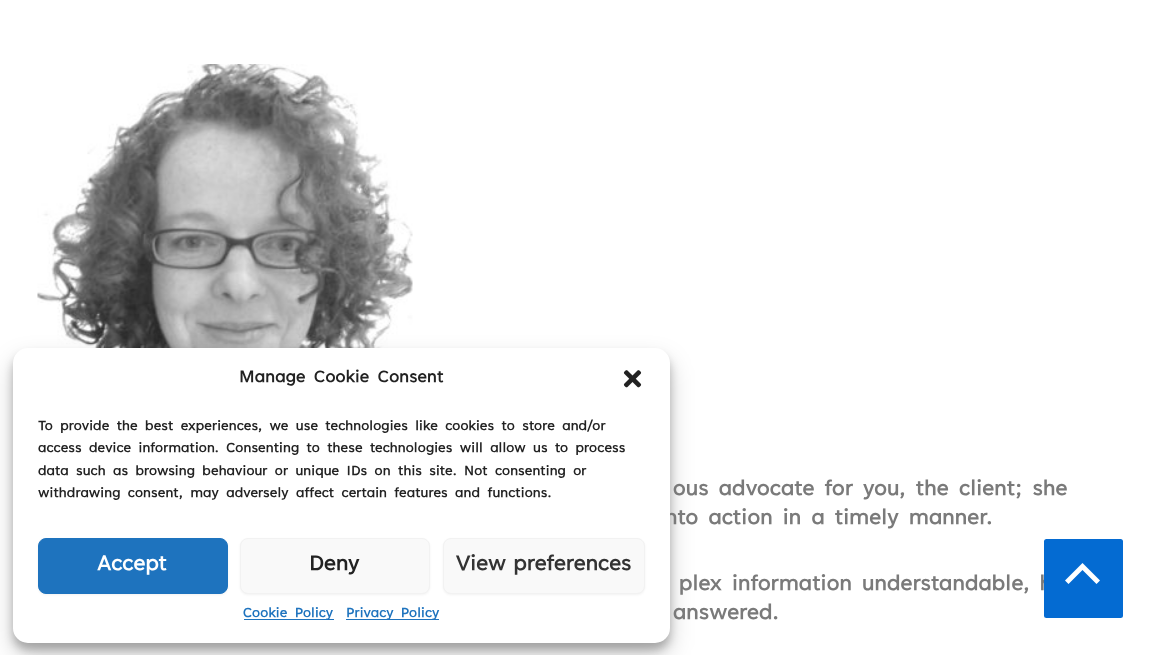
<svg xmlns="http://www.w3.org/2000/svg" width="1159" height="655">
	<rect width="100%" height="100%" fill="#FFFFFF" />
	<image x="37" y="64" width="376" height="284" href="assets/img2.png" />
	<rect x="13" y="355" width="657" height="295" rx="15" fill="#000000" fill-opacity="0.23" filter="blur(4px)" />
	<rect x="13" y="360" width="657" height="295" rx="15" fill="#000000" fill-opacity="0.19" filter="blur(12.5px)" />
	<text x="665" y="524" word-spacing="2.5" font-family="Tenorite" font-size="23.75" font-weight="700" letter-spacing="0.12" fill="#7A7A7A">nto action in a timely manner.</text>
	<rect x="13" y="348" width="657" height="295" rx="15" fill="#FFFFFF" />
	<text x="239" y="382" word-spacing="2.5" font-family="Tenorite" font-size="18.75" font-weight="700" letter-spacing="0.12" fill="#222222">Manage Cookie Consent</text>
	<image x="623" y="370" width="19" height="18" href="assets/img1.png" />
	<g font-family="Tenorite" font-size="15" font-weight="700" letter-spacing="0.12" fill="#222222">
		<text x="38" y="430" word-spacing="2.5">To provide the best experiences, we use technologies like cookies to store and/or</text>
		<text x="38" y="452" word-spacing="2.5">access device information. Consenting to these technologies will allow us to process</text>
		<text x="38" y="475" word-spacing="2.5">data such as browsing behaviour or unique IDs on this site. Not consenting or</text>
		<text x="38" y="497" word-spacing="2.5">withdrawing consent, may adversely affect certain features and functions.</text>
	</g>
	<rect x="38" y="539" width="190" height="56" rx="8" fill="#000000" fill-opacity="0.05" filter="blur(1px)" />
	<rect x="38.5" y="538.5" width="189" height="55" rx="7.5" fill="#1E73BE" stroke="#1E73BE" />
	<text x="97" y="570" font-family="Tenorite" font-size="23.75" font-weight="700" fill="#FFFFFF">Accept</text>
	<rect x="240" y="539" width="190" height="56" rx="8" fill="#000000" fill-opacity="0.05" filter="blur(1px)" />
	<rect x="240.5" y="538.5" width="189" height="55" rx="7.5" fill="#F9F9F9" stroke="#F2F2F2" />
	<text x="309" y="570" font-family="Tenorite" font-size="23.75" font-weight="700" fill="#222222">Deny</text>
	<rect x="443" y="539" width="202" height="56" rx="8" fill="#000000" fill-opacity="0.05" filter="blur(1px)" />
	<rect x="443.5" y="538.5" width="201" height="55" rx="7.5" fill="#F9F9F9" stroke="#F2F2F2" />
	<text x="456" y="570" font-family="Tenorite" font-size="23.75" font-weight="700" fill="#333333">View preferences</text>
	<rect x="244" y="619" width="90" height="1" fill="#1E73BE" />
	<text x="243" y="617" word-spacing="2.5" font-family="Tenorite" font-size="15" font-weight="700" letter-spacing="0.12" fill="#1E73BE">Cookie Policy</text>
	<rect x="346" y="619" width="93" height="1" fill="#1E73BE" />
	<text x="346" y="617" word-spacing="2.5" font-family="Tenorite" font-size="15" font-weight="700" letter-spacing="0.12" fill="#1E73BE">Privacy Policy</text>
	<g font-family="Tenorite" font-size="23.75" font-weight="700" letter-spacing="0.12" fill="#7A7A7A">
		<text x="673" y="495" word-spacing="2.5">ous advocate for you, the client; she</text>
		<text x="679" y="590" word-spacing="2.5">plex information understandable, h</text>
		<text x="673" y="619" word-spacing="3">answered.</text>
	</g>
	<rect x="1044" y="539" width="79" height="79" rx="2.5" fill="#046BD2" />
	<path d="M1100 580.5L1082.5 563L1065 580.5L1068.5 584L1082.5 570L1096.5 584Z" fill="#FFFFFF" />
</svg>
